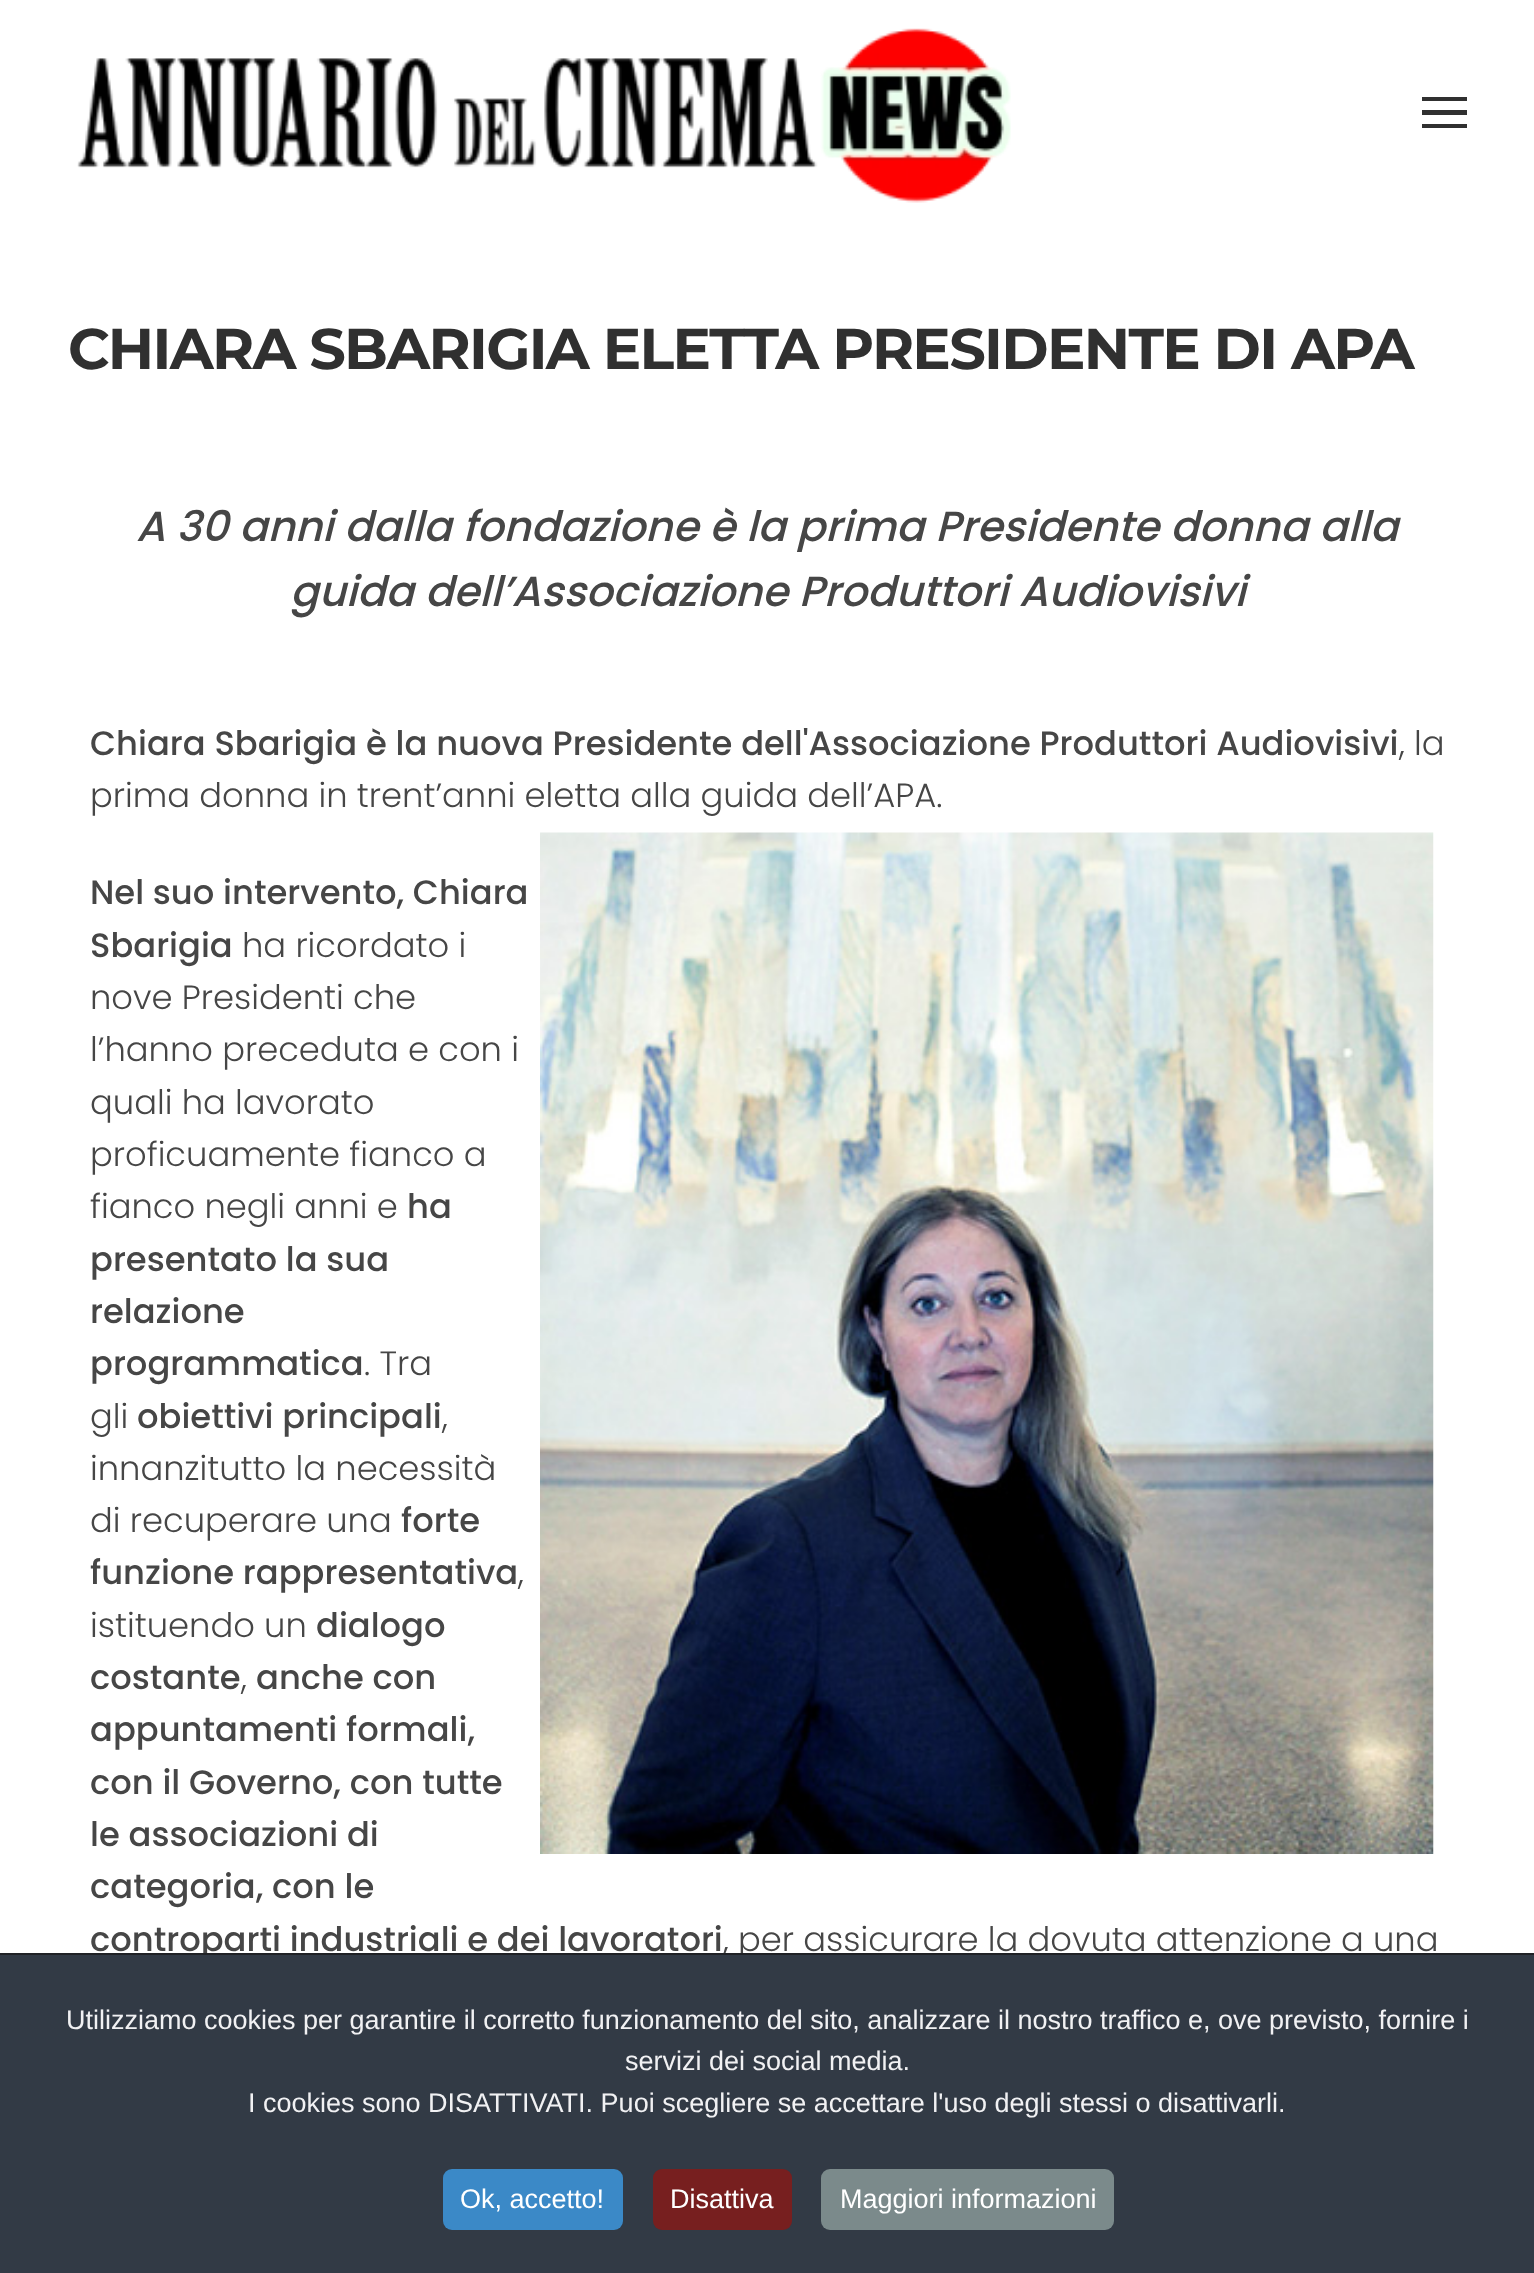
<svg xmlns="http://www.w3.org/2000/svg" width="1534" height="2273">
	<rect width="100%" height="100%" fill="#FFFFFF" />
	<image x="77" y="28" width="934" height="175" href="assets/img1.png" />
	<rect x="1422" y="97" width="45" height="4" fill="#303030" />
	<rect x="1422" y="110" width="45" height="5" fill="#303030" />
	<rect x="1422" y="124" width="45" height="4" fill="#303030" />
	<text x="68" y="369" font-family="Montserrat" font-size="57.4" font-weight="100" letter-spacing="-1.7" fill="#303030">CHIARA SBARIGIA ELETTA PRESIDENTE DI APA</text>
	<g font-family="Poppins" font-size="42" font-weight="500" font-style="italic" fill="#464646">
		<text x="136" y="541">A 30 anni dalla fondazione è la prima Presidente donna</text>
		<text x="1319" y="541">alla</text>
		<text x="290" y="606">guida dell’Associazione Produttori Audiovisivi</text>
	</g>
	<g font-family="Poppins" font-size="33.75" font-weight="500" fill="#464646">
		<text x="90" y="755">Chiara Sbarigia</text>
		<text x="366" y="755">è la nuova Presidente dell'Associazione Produttori Audiovisivi</text>
	</g>
	<g font-family="Poppins" font-size="33.75" font-weight="300" fill="#464646">
		<text x="1399" y="755">, la</text>
		<text x="90" y="807">prima donna in trent’anni eletta alla guida dell’APA.</text>
	</g>
	<image x="540" y="832" width="894" height="1022" href="assets/img2.png" />
	<g font-family="Poppins" font-size="33.75" font-weight="500" fill="#464646">
		<text x="90" y="904">Nel suo intervento, Chiara</text>
		<text x="90" y="957">Sbarigia</text>
	</g>
	<g font-family="Poppins" font-size="33.75" font-weight="300" fill="#464646">
		<text x="242" y="957">ha ricordato i</text>
		<text x="90" y="1009">nove Presidenti che</text>
		<text x="90" y="1061">l’hanno preceduta e con i</text>
		<text x="90" y="1114">quali ha lavorato</text>
		<text x="90" y="1166">proficuamente fianco a</text>
		<text x="90" y="1218">fianco negli anni e</text>
	</g>
	<g font-family="Poppins" font-size="33.75" font-weight="500" fill="#464646">
		<text x="407" y="1218">ha</text>
		<text x="90" y="1271">presentato la sua</text>
		<text x="90" y="1323">relazione</text>
		<text x="90" y="1375">programmatica</text>
	</g>
	<g font-family="Poppins" font-size="33.75" font-weight="300" fill="#464646">
		<text x="364" y="1375">. Tra</text>
		<text x="90" y="1428">gli</text>
	</g>
	<text x="137" y="1428" font-family="Poppins" font-size="33.75" font-weight="500" fill="#464646">obiettivi principali</text>
	<g font-family="Poppins" font-size="33.75" font-weight="300" fill="#464646">
		<text x="442" y="1428">,</text>
		<text x="90" y="1480">innanzitutto la necessità</text>
		<text x="90" y="1532">di recuperare una</text>
	</g>
	<g font-family="Poppins" font-size="33.75" font-weight="500" fill="#464646">
		<text x="401" y="1532">forte</text>
		<text x="90" y="1584">funzione rappresentativa</text>
	</g>
	<g font-family="Poppins" font-size="33.75" font-weight="300" fill="#464646">
		<text x="518" y="1584">,</text>
		<text x="90" y="1637">istituendo un</text>
	</g>
	<g font-family="Poppins" font-size="33.75" font-weight="500" fill="#464646">
		<text x="316" y="1637">dialogo</text>
		<text x="90" y="1689">costante</text>
	</g>
	<text x="241" y="1689" font-family="Poppins" font-size="33.75" font-weight="300" fill="#464646">,</text>
	<g font-family="Poppins" font-size="33.75" font-weight="500" fill="#464646">
		<text x="256" y="1689">anche con</text>
		<text x="90" y="1741">appuntamenti formali,</text>
		<text x="90" y="1794">con il Governo, con tutte</text>
		<text x="90" y="1846">le associazioni di</text>
		<text x="90" y="1898">categoria, con le</text>
		<text x="90" y="1951">controparti industriali e dei lavoratori</text>
	</g>
	<text x="723" y="1951" font-family="Poppins" font-size="33.75" font-weight="300" fill="#464646">, per assicurare la dovuta attenzione a una</text>
	<rect x="0" y="1955" width="1534" height="318" fill="#323A45" />
	<rect x="0" y="1953" width="1534" height="2" fill="#202226" />
	<g font-family="Liberation Sans" font-size="27" fill="#F1F1F3">
		<text x="66" y="2029">Utilizziamo cookies per garantire il corretto funzionamento del sito, analizzare il nostro traffico e, ove previsto, fornire i</text>
		<text x="625" y="2070">servizi dei social media.</text>
		<text x="248" y="2112">I cookies sono DISATTIVATI. Puoi scegliere se accettare l'uso degli stessi o disattivarli.</text>
	</g>
	<rect x="443" y="2169" width="180" height="61" rx="9" fill="#3B89C7" />
	<text x="460" y="2208" font-family="Liberation Sans" font-size="27" fill="#FFFFFF">Ok, accetto!</text>
	<rect x="653" y="2169" width="139" height="61" rx="9" fill="#771F1F" />
	<text x="670" y="2208" font-family="Liberation Sans" font-size="27" fill="#FFFFFF">Disattiva</text>
	<rect x="821" y="2169" width="293" height="61" rx="9" fill="#7B8A8B" />
	<text x="840" y="2208" font-family="Liberation Sans" font-size="27" fill="#FFFFFF">Maggiori informazioni</text>
</svg>
